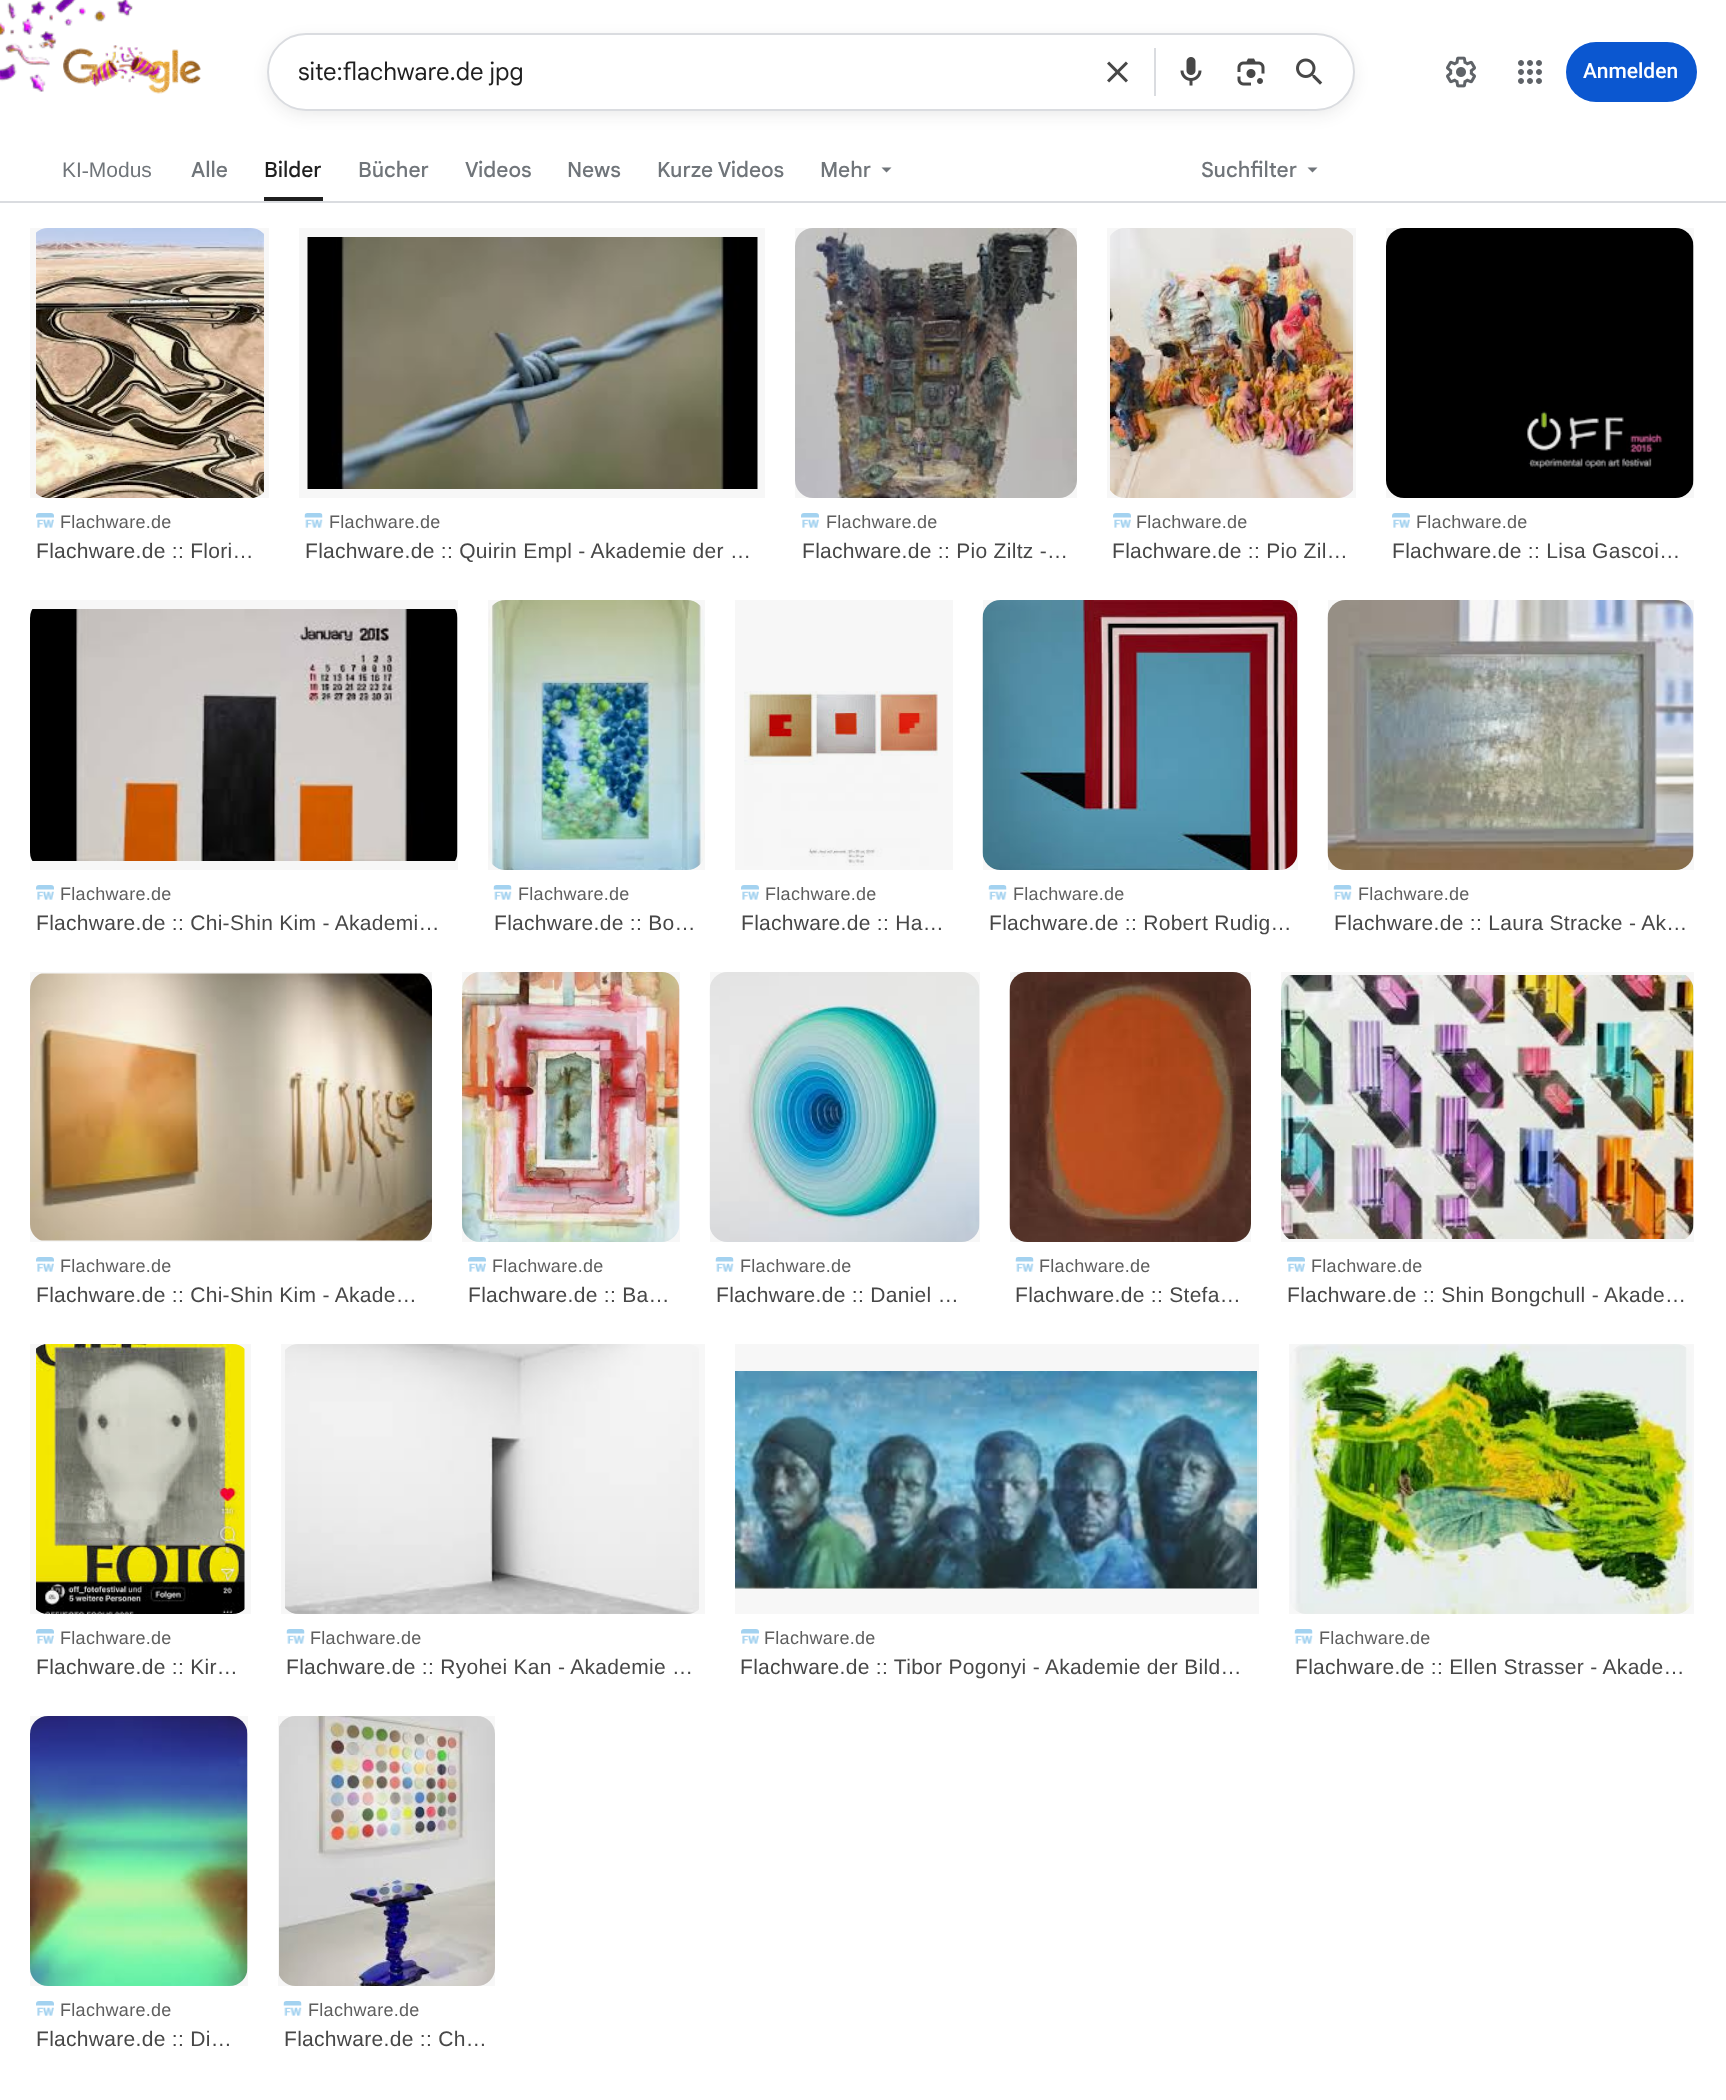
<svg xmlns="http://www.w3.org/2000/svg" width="1726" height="2100">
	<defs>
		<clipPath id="clip1"><rect x="299" y="35" width="783" height="63" /></clipPath>
	</defs>
	<rect width="100%" height="100%" fill="#FFFFFF" />
	<image x="0" y="0" width="133" height="92" href="assets/img1.png" />
	<image x="63" y="45" width="138" height="49" href="assets/img2.png" />
	<rect x="267" y="38" width="1088" height="78" rx="39" fill="#1F1F1F" fill-opacity="0.08" filter="blur(7.5px)" />
	<rect x="268" y="34" width="1086" height="76" rx="38" fill="#FFFFFF" stroke="#DADCE0" stroke-width="2" />
	<g clip-path="url(#clip1)">
		<text x="298" y="80" font-family="Google Sans" font-size="24" fill="#1F1F1F">site:flachware.de jpg</text>
	</g>
	<image x="1107" y="61" width="21" height="22" href="assets/img3.png" />
	<rect x="1154" y="48" width="2" height="48" fill="#DADCE0" />
	<image x="1180" y="57" width="22" height="29" href="assets/img4.png" />
	<image x="1237" y="58" width="28" height="28" href="assets/img5.png" />
	<image x="1296" y="58" width="27" height="27" href="assets/img6.png" />
	<image x="1446" y="56" width="30" height="32" href="assets/img7.png" />
	<image x="1518" y="60" width="24" height="24" href="assets/img8.png" />
	<rect x="1566" y="42" width="131" height="60" rx="30" fill="#0B57D0" />
	<text x="1583" y="78" font-family="Roboto" font-size="21" font-weight="500" fill="#FFFFFF">Anmelden</text>
	<text x="62" y="177" font-family="Liberation Sans" font-size="21" fill="#70757A">KI‑Modus</text>
	<text x="191" y="177" font-family="Google Sans" font-size="21" font-weight="500" fill="#70757A">Alle</text>
	<rect x="264" y="197" width="59" height="4" fill="#1F1F1F" />
	<text x="264" y="177" font-family="Google Sans" font-size="21" font-weight="500" fill="#1F1F1F">Bilder</text>
	<g font-family="Google Sans" font-size="21" font-weight="500" fill="#70757A">
		<text x="358" y="177">Bücher</text>
		<text x="465" y="177">Videos</text>
		<text x="567" y="177">News</text>
		<text x="657" y="177">Kurze Videos</text>
		<text x="820" y="177">Mehr</text>
	</g>
	<path d="M881.5 167.5L886.5 172.5L891.5 167.5Z" fill="#70757A" />
	<text x="1201" y="177" font-family="Google Sans" font-size="21" font-weight="500" fill="#70757A">Suchfilter</text>
	<path d="M1307.5 167.5L1312.5 172.5L1317.5 167.5Z" fill="#70757A" />
	<rect x="0" y="201" width="1726" height="2" fill="#DADCE0" />
	<image x="36" y="228" width="228" height="270" href="assets/img9.png" />
	<rect x="30" y="228" width="239" height="270" fill="#000000" fill-opacity="0.03" />
	<image x="36" y="513" width="18" height="15" href="assets/img10.png" />
	<text x="60" y="528" font-family="Liberation Sans" font-size="18" letter-spacing="0.3" fill="#5E5E5E">Flachware.de</text>
	<text x="36" y="558" font-family="Liberation Sans" font-size="21" letter-spacing="0.3" fill="#474747">Flachware.de :: Flori…</text>
	<image x="307" y="237" width="451" height="252" href="assets/img11.png" />
	<rect x="299" y="228" width="466" height="270" fill="#000000" fill-opacity="0.03" />
	<image x="304" y="513" width="19" height="15" href="assets/img12.png" />
	<text x="329" y="528" font-family="Liberation Sans" font-size="18" letter-spacing="0.3" fill="#5E5E5E">Flachware.de</text>
	<text x="305" y="558" font-family="Liberation Sans" font-size="21" letter-spacing="0.3" fill="#474747">Flachware.de :: Quirin Empl - Akademie der …</text>
	<image x="795" y="228" width="282" height="270" href="assets/img13.png" />
	<rect x="795" y="228" width="282" height="270" fill="#000000" fill-opacity="0.03" />
	<image x="801" y="513" width="18" height="15" href="assets/img14.png" />
	<text x="826" y="528" font-family="Liberation Sans" font-size="18" letter-spacing="0.3" fill="#5E5E5E">Flachware.de</text>
	<text x="802" y="558" font-family="Liberation Sans" font-size="21" letter-spacing="0.3" fill="#474747">Flachware.de :: Pio Ziltz -…</text>
	<image x="1110" y="228" width="243" height="270" href="assets/img15.png" />
	<rect x="1107" y="228" width="249" height="270" fill="#000000" fill-opacity="0.03" />
	<image x="1113" y="513" width="18" height="15" href="assets/img14.png" />
	<text x="1136" y="528" font-family="Liberation Sans" font-size="18" letter-spacing="0.3" fill="#5E5E5E">Flachware.de</text>
	<text x="1112" y="558" font-family="Liberation Sans" font-size="21" letter-spacing="0.3" fill="#474747">Flachware.de :: Pio Zil…</text>
	<image x="1386" y="228" width="308" height="270" href="assets/img16.png" />
	<rect x="1386" y="228" width="308" height="270" fill="#000000" fill-opacity="0.03" />
	<image x="1392" y="513" width="18" height="15" href="assets/img10.png" />
	<text x="1416" y="528" font-family="Liberation Sans" font-size="18" letter-spacing="0.3" fill="#5E5E5E">Flachware.de</text>
	<text x="1392" y="558" font-family="Liberation Sans" font-size="21" letter-spacing="0.3" fill="#474747">Flachware.de :: Lisa Gascoi…</text>
	<image x="30" y="609" width="428" height="252" href="assets/img17.png" />
	<rect x="30" y="600" width="428" height="270" fill="#000000" fill-opacity="0.03" />
	<image x="36" y="885" width="18" height="15" href="assets/img10.png" />
	<text x="60" y="900" font-family="Liberation Sans" font-size="18" letter-spacing="0.3" fill="#5E5E5E">Flachware.de</text>
	<text x="36" y="930" font-family="Liberation Sans" font-size="21" letter-spacing="0.3" fill="#474747">Flachware.de :: Chi-Shin Kim - Akademi…</text>
	<image x="488" y="600" width="217" height="270" href="assets/img18.png" />
	<rect x="488" y="600" width="217" height="270" fill="#000000" fill-opacity="0.03" />
	<image x="493" y="885" width="19" height="15" href="assets/img12.png" />
	<text x="518" y="900" font-family="Liberation Sans" font-size="18" letter-spacing="0.3" fill="#5E5E5E">Flachware.de</text>
	<text x="494" y="930" font-family="Liberation Sans" font-size="21" letter-spacing="0.3" fill="#474747">Flachware.de :: Bo…</text>
	<image x="744" y="691" width="194" height="175" href="assets/img19.png" />
	<rect x="735" y="600" width="218" height="270" fill="#000000" fill-opacity="0.03" />
	<image x="741" y="885" width="18" height="15" href="assets/img14.png" />
	<text x="765" y="900" font-family="Liberation Sans" font-size="18" letter-spacing="0.3" fill="#5E5E5E">Flachware.de</text>
	<text x="741" y="930" font-family="Liberation Sans" font-size="21" letter-spacing="0.3" fill="#474747">Flachware.de :: Ha…</text>
	<image x="982" y="600" width="316" height="270" href="assets/img20.png" />
	<rect x="983" y="600" width="315" height="270" fill="#000000" fill-opacity="0.03" />
	<image x="988" y="885" width="19" height="15" href="assets/img12.png" />
	<text x="1013" y="900" font-family="Liberation Sans" font-size="18" letter-spacing="0.3" fill="#5E5E5E">Flachware.de</text>
	<text x="989" y="930" font-family="Liberation Sans" font-size="21" letter-spacing="0.3" fill="#474747">Flachware.de :: Robert Rudig…</text>
	<image x="1327" y="600" width="367" height="270" href="assets/img21.png" />
	<rect x="1328" y="600" width="366" height="270" fill="#000000" fill-opacity="0.03" />
	<image x="1333" y="885" width="19" height="15" href="assets/img22.png" />
	<text x="1358" y="900" font-family="Liberation Sans" font-size="18" letter-spacing="0.3" fill="#5E5E5E">Flachware.de</text>
	<text x="1334" y="930" font-family="Liberation Sans" font-size="21" letter-spacing="0.3" fill="#474747">Flachware.de :: Laura Stracke - Ak…</text>
	<image x="30" y="973" width="402" height="268" href="assets/img23.png" />
	<rect x="30" y="972" width="402" height="270" fill="#000000" fill-opacity="0.03" />
	<image x="36" y="1257" width="18" height="15" href="assets/img10.png" />
	<text x="60" y="1272" font-family="Liberation Sans" font-size="18" letter-spacing="0.3" fill="#5E5E5E">Flachware.de</text>
	<text x="36" y="1302" font-family="Liberation Sans" font-size="21" letter-spacing="0.3" fill="#474747">Flachware.de :: Chi-Shin Kim - Akade…</text>
	<image x="462" y="972" width="218" height="270" href="assets/img24.png" />
	<rect x="462" y="972" width="218" height="270" fill="#000000" fill-opacity="0.03" />
	<image x="468" y="1257" width="18" height="15" href="assets/img14.png" />
	<text x="492" y="1272" font-family="Liberation Sans" font-size="18" letter-spacing="0.3" fill="#5E5E5E">Flachware.de</text>
	<text x="468" y="1302" font-family="Liberation Sans" font-size="21" letter-spacing="0.3" fill="#474747">Flachware.de :: Ba…</text>
	<image x="709" y="972" width="271" height="270" href="assets/img25.png" />
	<rect x="710" y="972" width="270" height="270" fill="#000000" fill-opacity="0.03" />
	<image x="715" y="1257" width="19" height="15" href="assets/img22.png" />
	<text x="740" y="1272" font-family="Liberation Sans" font-size="18" letter-spacing="0.3" fill="#5E5E5E">Flachware.de</text>
	<text x="716" y="1302" font-family="Liberation Sans" font-size="21" letter-spacing="0.3" fill="#474747">Flachware.de :: Daniel …</text>
	<image x="1009" y="972" width="242" height="270" href="assets/img26.png" />
	<rect x="1010" y="972" width="241" height="270" fill="#000000" fill-opacity="0.03" />
	<image x="1015" y="1257" width="19" height="15" href="assets/img27.png" />
	<text x="1039" y="1272" font-family="Liberation Sans" font-size="18" letter-spacing="0.3" fill="#5E5E5E">Flachware.de</text>
	<text x="1015" y="1302" font-family="Liberation Sans" font-size="21" letter-spacing="0.3" fill="#474747">Flachware.de :: Stefa…</text>
	<image x="1281" y="975" width="413" height="264" href="assets/img28.png" />
	<rect x="1281" y="972" width="413" height="270" fill="#000000" fill-opacity="0.03" />
	<image x="1287" y="1257" width="18" height="15" href="assets/img14.png" />
	<text x="1311" y="1272" font-family="Liberation Sans" font-size="18" letter-spacing="0.3" fill="#5E5E5E">Flachware.de</text>
	<text x="1287" y="1302" font-family="Liberation Sans" font-size="21" letter-spacing="0.3" fill="#474747">Flachware.de :: Shin Bongchull - Akade…</text>
	<image x="36" y="1344" width="209" height="270" href="assets/img29.png" />
	<rect x="30" y="1344" width="221" height="270" fill="#000000" fill-opacity="0.03" />
	<image x="36" y="1629" width="18" height="15" href="assets/img10.png" />
	<text x="60" y="1644" font-family="Liberation Sans" font-size="18" letter-spacing="0.3" fill="#5E5E5E">Flachware.de</text>
	<text x="36" y="1674" font-family="Liberation Sans" font-size="21" letter-spacing="0.3" fill="#474747">Flachware.de :: Kir…</text>
	<image x="285" y="1344" width="414" height="270" href="assets/img30.png" />
	<rect x="281" y="1344" width="424" height="270" fill="#000000" fill-opacity="0.03" />
	<image x="286" y="1629" width="19" height="15" href="assets/img12.png" />
	<text x="310" y="1644" font-family="Liberation Sans" font-size="18" letter-spacing="0.3" fill="#5E5E5E">Flachware.de</text>
	<text x="286" y="1674" font-family="Liberation Sans" font-size="21" letter-spacing="0.3" fill="#474747">Flachware.de :: Ryohei Kan - Akademie …</text>
	<image x="735" y="1371" width="522" height="218" href="assets/img31.png" />
	<rect x="735" y="1344" width="524" height="270" fill="#000000" fill-opacity="0.03" />
	<image x="741" y="1629" width="18" height="15" href="assets/img14.png" />
	<text x="764" y="1644" font-family="Liberation Sans" font-size="18" letter-spacing="0.3" fill="#5E5E5E">Flachware.de</text>
	<text x="740" y="1674" font-family="Liberation Sans" font-size="21" letter-spacing="0.3" fill="#474747">Flachware.de :: Tibor Pogonyi - Akademie der Bild…</text>
	<image x="1290" y="1344" width="402" height="270" href="assets/img32.png" />
	<rect x="1289" y="1344" width="405" height="270" fill="#000000" fill-opacity="0.03" />
	<image x="1294" y="1629" width="19" height="15" href="assets/img22.png" />
	<text x="1319" y="1644" font-family="Liberation Sans" font-size="18" letter-spacing="0.3" fill="#5E5E5E">Flachware.de</text>
	<text x="1295" y="1674" font-family="Liberation Sans" font-size="21" letter-spacing="0.3" fill="#474747">Flachware.de :: Ellen Strasser - Akade…</text>
	<image x="30" y="1716" width="218" height="270" href="assets/img33.png" />
	<rect x="30" y="1716" width="218" height="270" fill="#000000" fill-opacity="0.03" />
	<image x="36" y="2001" width="18" height="15" href="assets/img10.png" />
	<text x="60" y="2016" font-family="Liberation Sans" font-size="18" letter-spacing="0.3" fill="#5E5E5E">Flachware.de</text>
	<text x="36" y="2046" font-family="Liberation Sans" font-size="21" letter-spacing="0.3" fill="#474747">Flachware.de :: Di…</text>
	<image x="279" y="1716" width="216" height="270" href="assets/img34.png" />
	<rect x="278" y="1716" width="217" height="270" fill="#000000" fill-opacity="0.03" />
	<image x="283" y="2001" width="19" height="15" href="assets/img22.png" />
	<text x="308" y="2016" font-family="Liberation Sans" font-size="18" letter-spacing="0.3" fill="#5E5E5E">Flachware.de</text>
	<text x="284" y="2046" font-family="Liberation Sans" font-size="21" letter-spacing="0.3" fill="#474747">Flachware.de :: Ch…</text>
</svg>
